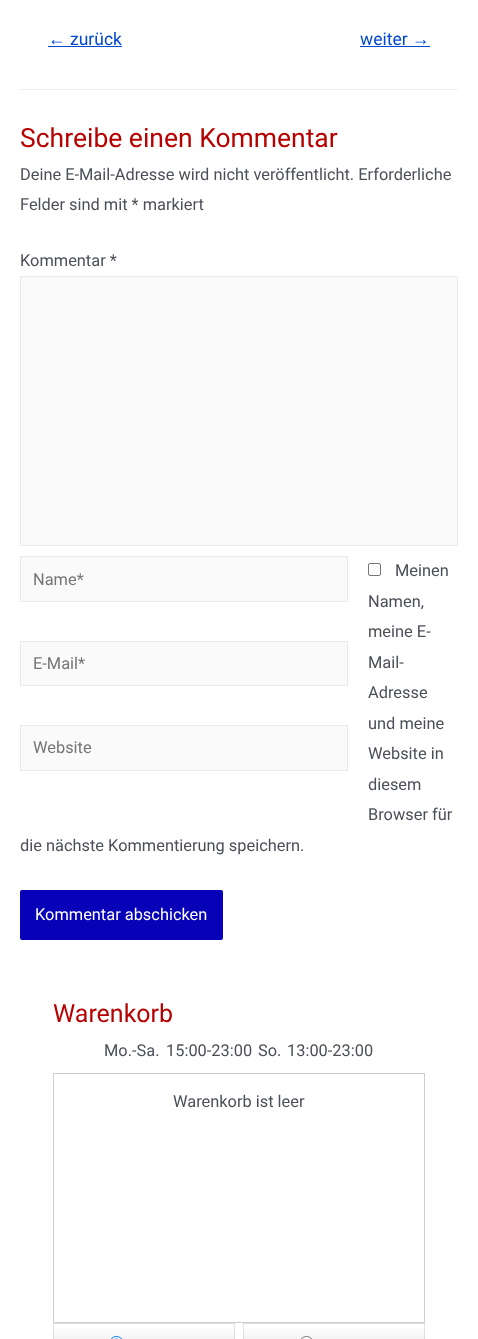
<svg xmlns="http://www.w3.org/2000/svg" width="478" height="1339">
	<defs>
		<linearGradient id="g1" gradientUnits="userSpaceOnUse" x1="144" y1="1324" x2="144" y2="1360"><stop offset="0" stop-color="#FFFFFF" /><stop offset="1" stop-color="#E6E6E6" /></linearGradient>
		<linearGradient id="g2" gradientUnits="userSpaceOnUse" x1="334" y1="1324" x2="334" y2="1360"><stop offset="0" stop-color="#FFFFFF" /><stop offset="1" stop-color="#E6E6E6" /></linearGradient>
	</defs>
	<rect width="100%" height="100%" fill="#FFFFFF" />
	<text x="48" y="45" font-family="Liberation Sans" font-size="17.5" fill="#0248D3">←</text>
	<rect x="48" y="46" width="74" height="1" fill="#0248D3" />
	<g font-family="Roboto" font-size="17.5" fill="#0248D3">
		<text x="70" y="45">zurück</text>
		<text x="360" y="45">weiter</text>
	</g>
	<rect x="360" y="46" width="70" height="1" fill="#0248D3" />
	<text x="412" y="45" font-family="Liberation Sans" font-size="17.5" fill="#0248D3">→</text>
	<rect x="20" y="89" width="438" height="1" fill="#EEEEEE" />
	<text x="20" y="147" font-family="Roboto" font-size="26.5" fill="#B70000">Schreibe einen Kommentar</text>
	<g font-family="Roboto" font-size="16.4" fill="#4B4F58">
		<text x="20" y="180">Deine E-Mail-Adresse wird nicht veröffentlicht. Erforderliche</text>
		<text x="20" y="210">Felder sind mit * markiert</text>
		<text x="20" y="266">Kommentar *</text>
	</g>
	<rect x="20.5" y="276.5" width="437" height="269" fill="#FAFAFA" stroke="#EAEAEA" />
	<rect x="368.5" y="563.5" width="12" height="12" rx="1.5" fill="none" stroke="#767676" />
	<g font-family="Roboto" font-size="16.4" fill="#4B4F58">
		<text x="395" y="576">Meinen</text>
		<text x="368" y="607">Namen,</text>
		<text x="368" y="637">meine E-</text>
		<text x="368" y="668">Mail-</text>
		<text x="368" y="698">Adresse</text>
		<text x="368" y="729">und meine</text>
		<text x="368" y="759">Website in</text>
		<text x="368" y="790">diesem</text>
		<text x="368" y="820">Browser für</text>
		<text x="20" y="851">die nächste Kommentierung speichern.</text>
	</g>
	<rect x="20.5" y="556.5" width="327" height="45" fill="#FAFAFA" stroke="#EAEAEA" />
	<text x="33" y="585" font-family="Roboto" font-size="16.4" fill="#757575">Name*</text>
	<rect x="20.5" y="641.5" width="327" height="44" fill="#FAFAFA" stroke="#EAEAEA" />
	<text x="33" y="669" font-family="Roboto" font-size="16.4" fill="#757575">E-Mail*</text>
	<rect x="20.5" y="725.5" width="327" height="45" fill="#FAFAFA" stroke="#EAEAEA" />
	<text x="33" y="753" font-family="Roboto" font-size="16.4" fill="#757575">Website</text>
	<rect x="20" y="890" width="203" height="50" rx="2" fill="#0701B7" />
	<text x="35" y="920" font-family="Roboto" font-size="16.4" fill="#FFFFFF">Kommentar abschicken</text>
	<text x="53" y="1022" font-family="Roboto" font-size="25" fill="#B70000">Warenkorb</text>
	<g font-family="Roboto" font-size="16.4" fill="#4B4F58">
		<text x="104" y="1056">Mo.-Sa.</text>
		<text x="166" y="1056">15:00-23:00</text>
		<text x="258" y="1056">So.</text>
		<text x="287" y="1056">13:00-23:00</text>
	</g>
	<rect x="53.5" y="1073.5" width="371" height="249" fill="none" stroke="#CECECE" />
	<text x="173" y="1107" font-family="Roboto" font-size="16.4" fill="#4B4F58">Warenkorb ist leer</text>
	<rect x="53" y="1323" width="182" height="1" fill="#F5F5F5" />
	<rect x="53" y="1328" width="182" height="11" fill="url(#g1)" />
	<path d="M53 1323H235L234 1324H54Z" fill="#DDDDDD" />
	<path d="M235 1323V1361L234 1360V1324Z" fill="#000000" fill-opacity="0.1" />
	<path d="M53 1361V1323L54 1324V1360Z" fill="#000000" fill-opacity="0.1" />
	<rect x="110.5" y="1336.5" width="12" height="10" rx="6" fill="#FFFFFF" stroke="#0075FF" />
	<circle cx="116.5" cy="1342.5" r="4" fill="#0075FF" />
	<rect x="243" y="1323" width="182" height="1" fill="#F5F5F5" />
	<rect x="243" y="1328" width="182" height="11" fill="url(#g2)" />
	<path d="M243 1323H425L424 1324H244Z" fill="#DDDDDD" />
	<path d="M425 1323V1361L424 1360V1324Z" fill="#000000" fill-opacity="0.1" />
	<path d="M243 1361V1323L244 1324V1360Z" fill="#000000" fill-opacity="0.1" />
	<rect x="300.5" y="1336.5" width="12" height="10" rx="6" fill="#FFFFFF" stroke="#767676" />
</svg>
